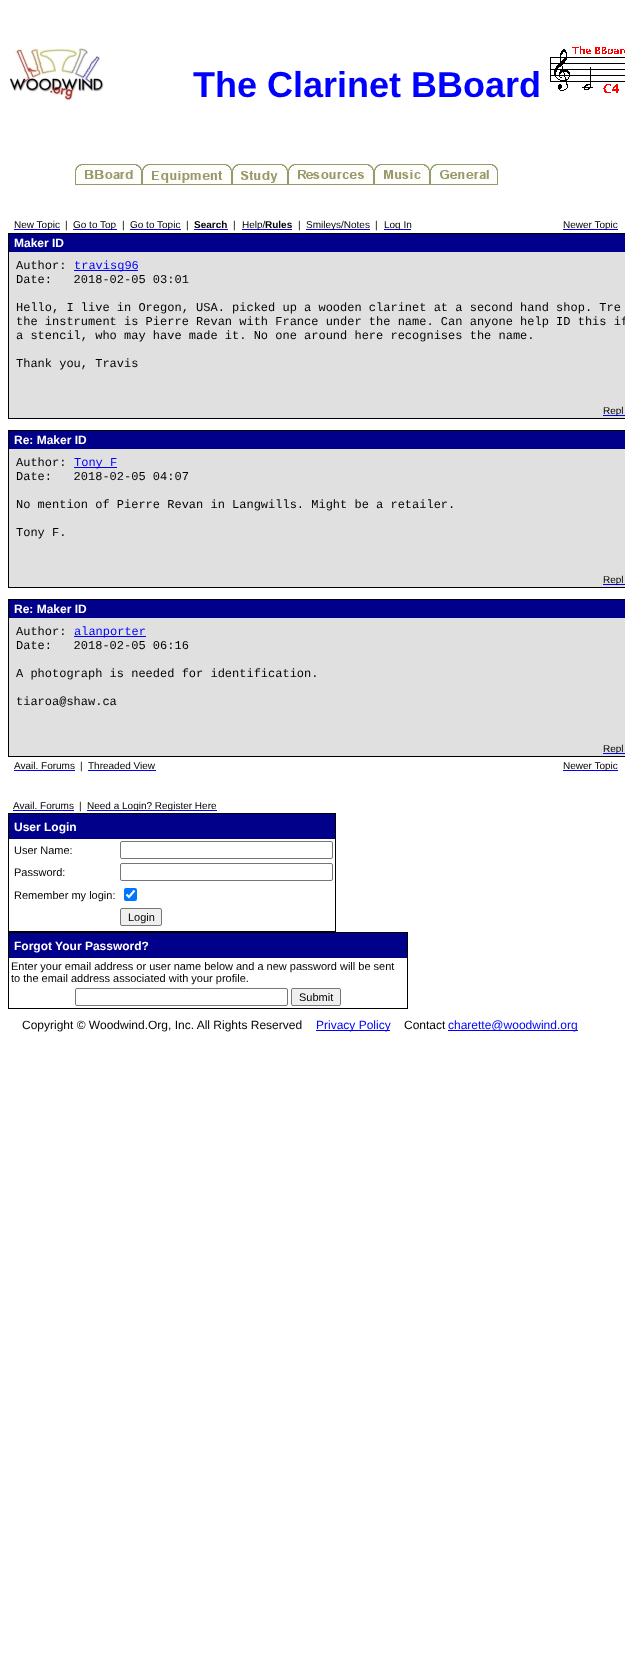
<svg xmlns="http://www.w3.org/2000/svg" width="625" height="1669">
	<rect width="100%" height="100%" fill="#FFFFFF" />
	<image x="9" y="47" width="95" height="54" href="assets/img1.png" />
	<text x="193" y="97" font-family="Liberation Sans" font-size="36" font-weight="700" fill="#0000FF">The Clarinet BBoard</text>
	<image x="550" y="46" width="75" height="47" href="assets/img2.png" />
	<image x="75" y="164" width="67" height="22" href="assets/img3.png" />
	<image x="142" y="164" width="90" height="22" href="assets/img4.png" />
	<image x="232" y="164" width="56" height="22" href="assets/img5.png" />
	<image x="288" y="164" width="86" height="22" href="assets/img6.png" />
	<image x="374" y="164" width="56" height="22" href="assets/img7.png" />
	<image x="430" y="164" width="68" height="22" href="assets/img8.png" />
	<rect x="14" y="229" width="46" height="1" fill="#0000FF" />
	<g font-family="Liberation Sans" font-size="10" fill="#000000">
		<text x="14" y="228">New Topic</text>
		<text x="65" y="228">|</text>
	</g>
	<rect x="73" y="229" width="44" height="1" fill="#0000FF" />
	<g font-family="Liberation Sans" font-size="10" fill="#000000">
		<text x="73" y="228">Go to Top</text>
		<text x="122" y="228">|</text>
	</g>
	<rect x="130" y="229" width="51" height="1" fill="#0000FF" />
	<g font-family="Liberation Sans" font-size="10" fill="#000000">
		<text x="130" y="228">Go to Topic</text>
		<text x="186" y="228">|</text>
	</g>
	<text x="194" y="228" font-family="Liberation Sans" font-size="10" font-weight="700" fill="#000000">Search</text>
	<rect x="194" y="229" width="34" height="1" fill="#0000FF" />
	<text x="233" y="228" font-family="Liberation Sans" font-size="10" fill="#000000">|</text>
	<rect x="242" y="229" width="50" height="1" fill="#0000FF" />
	<text x="242" y="228" font-family="Liberation Sans" font-size="10" fill="#000000">Help/</text>
	<text x="265" y="228" font-family="Liberation Sans" font-size="10" font-weight="700" fill="#000000">Rules</text>
	<text x="298" y="228" font-family="Liberation Sans" font-size="10" fill="#000000">|</text>
	<rect x="306" y="229" width="64" height="1" fill="#0000FF" />
	<g font-family="Liberation Sans" font-size="10" fill="#000000">
		<text x="306" y="228">Smileys/Notes</text>
		<text x="375" y="228">|</text>
	</g>
	<rect x="384" y="229" width="27" height="1" fill="#0000FF" />
	<text x="384" y="228" font-family="Liberation Sans" font-size="10" fill="#000000">Log In</text>
	<rect x="563" y="229" width="55" height="1" fill="#0000FF" />
	<text x="563" y="228" font-family="Liberation Sans" font-size="10" fill="#000000">Newer Topic</text>
	<rect x="8.5" y="233.5" width="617" height="185" fill="none" stroke="#000000" />
	<rect x="9" y="234" width="616" height="18" fill="#00008A" />
	<text x="14" y="247" font-family="Liberation Sans" font-size="12" font-weight="700" fill="#FFFFFF">Maker ID</text>
	<rect x="9" y="252" width="616" height="166" fill="#E0E0E0" />
	<text x="16" y="269" font-family="Liberation Mono" font-size="12" fill="#000000">Author:</text>
	<rect x="74" y="270" width="64" height="1" fill="#0000FF" />
	<text x="74" y="269" font-family="Liberation Mono" font-size="12" fill="#0000FF">travisg96</text>
	<g font-family="Liberation Mono" font-size="12" fill="#000000">
		<text x="16" y="283" xml:space="preserve">Date:   2018-02-05 03:01</text>
		<text x="16" y="311">Hello, I live in Oregon, USA. picked up a wooden clarinet at a second hand shop. Tre</text>
		<text x="16" y="325">the instrument is Pierre Revan with France under the name. Can anyone help ID this if</text>
		<text x="16" y="339">a stencil, who may have made it. No one around here recognises the name.</text>
		<text x="16" y="367">Thank you, Travis</text>
	</g>
	<rect x="603" y="415" width="22" height="1" fill="#0000FF" />
	<text x="603" y="414" font-family="Liberation Sans" font-size="10" fill="#000000">Repl</text>
	<rect x="8.5" y="430.5" width="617" height="157" fill="none" stroke="#000000" />
	<rect x="9" y="431" width="616" height="18" fill="#00008A" />
	<text x="14" y="444" font-family="Liberation Sans" font-size="12" font-weight="700" fill="#FFFFFF">Re: Maker ID</text>
	<rect x="9" y="449" width="616" height="138" fill="#E0E0E0" />
	<text x="16" y="466" font-family="Liberation Mono" font-size="12" fill="#000000">Author:</text>
	<rect x="74" y="467" width="43" height="1" fill="#0000FF" />
	<text x="74" y="466" font-family="Liberation Mono" font-size="12" fill="#0000FF">Tony F</text>
	<g font-family="Liberation Mono" font-size="12" fill="#000000">
		<text x="16" y="480" xml:space="preserve">Date:   2018-02-05 04:07</text>
		<text x="16" y="508">No mention of Pierre Revan in Langwills. Might be a retailer.</text>
		<text x="16" y="536">Tony F.</text>
	</g>
	<rect x="603" y="584" width="22" height="1" fill="#0000FF" />
	<text x="603" y="583" font-family="Liberation Sans" font-size="10" fill="#000000">Repl</text>
	<rect x="8.5" y="599.5" width="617" height="157" fill="none" stroke="#000000" />
	<rect x="9" y="600" width="616" height="18" fill="#00008A" />
	<text x="14" y="613" font-family="Liberation Sans" font-size="12" font-weight="700" fill="#FFFFFF">Re: Maker ID</text>
	<rect x="9" y="618" width="616" height="138" fill="#E0E0E0" />
	<text x="16" y="635" font-family="Liberation Mono" font-size="12" fill="#000000">Author:</text>
	<rect x="74" y="636" width="72" height="1" fill="#0000FF" />
	<text x="74" y="635" font-family="Liberation Mono" font-size="12" fill="#0000FF">alanporter</text>
	<g font-family="Liberation Mono" font-size="12" fill="#000000">
		<text x="16" y="649" xml:space="preserve">Date:   2018-02-05 06:16</text>
		<text x="16" y="677">A photograph is needed for identification.</text>
		<text x="16" y="705">tiaroa@shaw.ca</text>
	</g>
	<rect x="603" y="753" width="22" height="1" fill="#0000FF" />
	<g font-family="Liberation Sans" font-size="10" fill="#000000">
		<text x="603" y="752">Repl</text>
		<text x="14" y="769">Avail. Forums</text>
	</g>
	<rect x="14" y="770" width="61" height="1" fill="#0000FF" />
	<g font-family="Liberation Sans" font-size="10" fill="#000000">
		<text x="80" y="769">|</text>
		<text x="88" y="769">Threaded View</text>
	</g>
	<rect x="88" y="770" width="68" height="1" fill="#0000FF" />
	<rect x="563" y="770" width="55" height="1" fill="#0000FF" />
	<g font-family="Liberation Sans" font-size="10" fill="#000000">
		<text x="563" y="769">Newer Topic</text>
		<text x="13" y="809">Avail. Forums</text>
	</g>
	<rect x="13" y="810" width="61" height="1" fill="#0000FF" />
	<text x="79" y="809" font-family="Liberation Sans" font-size="10" fill="#000000">|</text>
	<rect x="87" y="810" width="130" height="1" fill="#0000FF" />
	<text x="87" y="809" font-family="Liberation Sans" font-size="10" fill="#000000">Need a Login? Register Here</text>
	<rect x="8.5" y="813.5" width="327" height="118" fill="none" stroke="#000000" />
	<rect x="9" y="814" width="326" height="25" fill="#00008A" />
	<text x="14" y="831" font-family="Liberation Sans" font-size="12" font-weight="700" fill="#FFFFFF">User Login</text>
	<text x="14" y="854" font-family="Liberation Sans" font-size="11" fill="#000000">User Name:</text>
	<rect x="120.5" y="841.5" width="212" height="17" rx="1.5" fill="none" stroke="#767676" />
	<text x="14" y="876" font-family="Liberation Sans" font-size="11" fill="#000000">Password:</text>
	<rect x="120.5" y="863.5" width="212" height="17" rx="1.5" fill="none" stroke="#767676" />
	<text x="14" y="899" font-family="Liberation Sans" font-size="11" fill="#000000">Remember my login:</text>
	<rect x="124" y="888" width="13" height="13" rx="2" fill="#0075FF" />
	<path d="M126.5 894.5L129 897L134.5 890.5" fill="none" stroke="#FFFFFF" stroke-width="2.1" />
	<rect x="120.5" y="908.5" width="41" height="17" rx="1.5" fill="#EFEFEF" stroke="#767676" />
	<text x="128" y="921" font-family="Liberation Sans" font-size="11" fill="#000000">Login</text>
	<rect x="8.5" y="932.5" width="399" height="76" fill="none" stroke="#000000" />
	<rect x="9" y="933" width="398" height="25" fill="#00008A" />
	<text x="14" y="950" font-family="Liberation Sans" font-size="12" font-weight="700" fill="#FFFFFF">Forgot Your Password?</text>
	<g font-family="Liberation Sans" font-size="11" fill="#000000">
		<text x="11" y="970">Enter your email address or user name below and a new password will be sent</text>
		<text x="11" y="982">to the email address associated with your profile.</text>
	</g>
	<rect x="75.5" y="988.5" width="212" height="17" rx="1.5" fill="none" stroke="#767676" />
	<rect x="291.5" y="988.5" width="49" height="17" rx="1.5" fill="#EFEFEF" stroke="#767676" />
	<text x="299" y="1001" font-family="Liberation Sans" font-size="11" fill="#000000">Submit</text>
	<text x="22" y="1029" font-family="Liberation Sans" font-size="12" fill="#000000">Copyright © Woodwind.Org, Inc. All Rights Reserved</text>
	<rect x="316" y="1030" width="74" height="1" fill="#0000FF" />
	<text x="316" y="1029" font-family="Liberation Sans" font-size="12" fill="#0000FF">Privacy Policy</text>
	<text x="404" y="1029" font-family="Liberation Sans" font-size="12" fill="#000000">Contact</text>
	<rect x="448" y="1030" width="130" height="1" fill="#0000FF" />
	<text x="448" y="1029" font-family="Liberation Sans" font-size="12" fill="#0000FF">charette@woodwind.org</text>
</svg>
